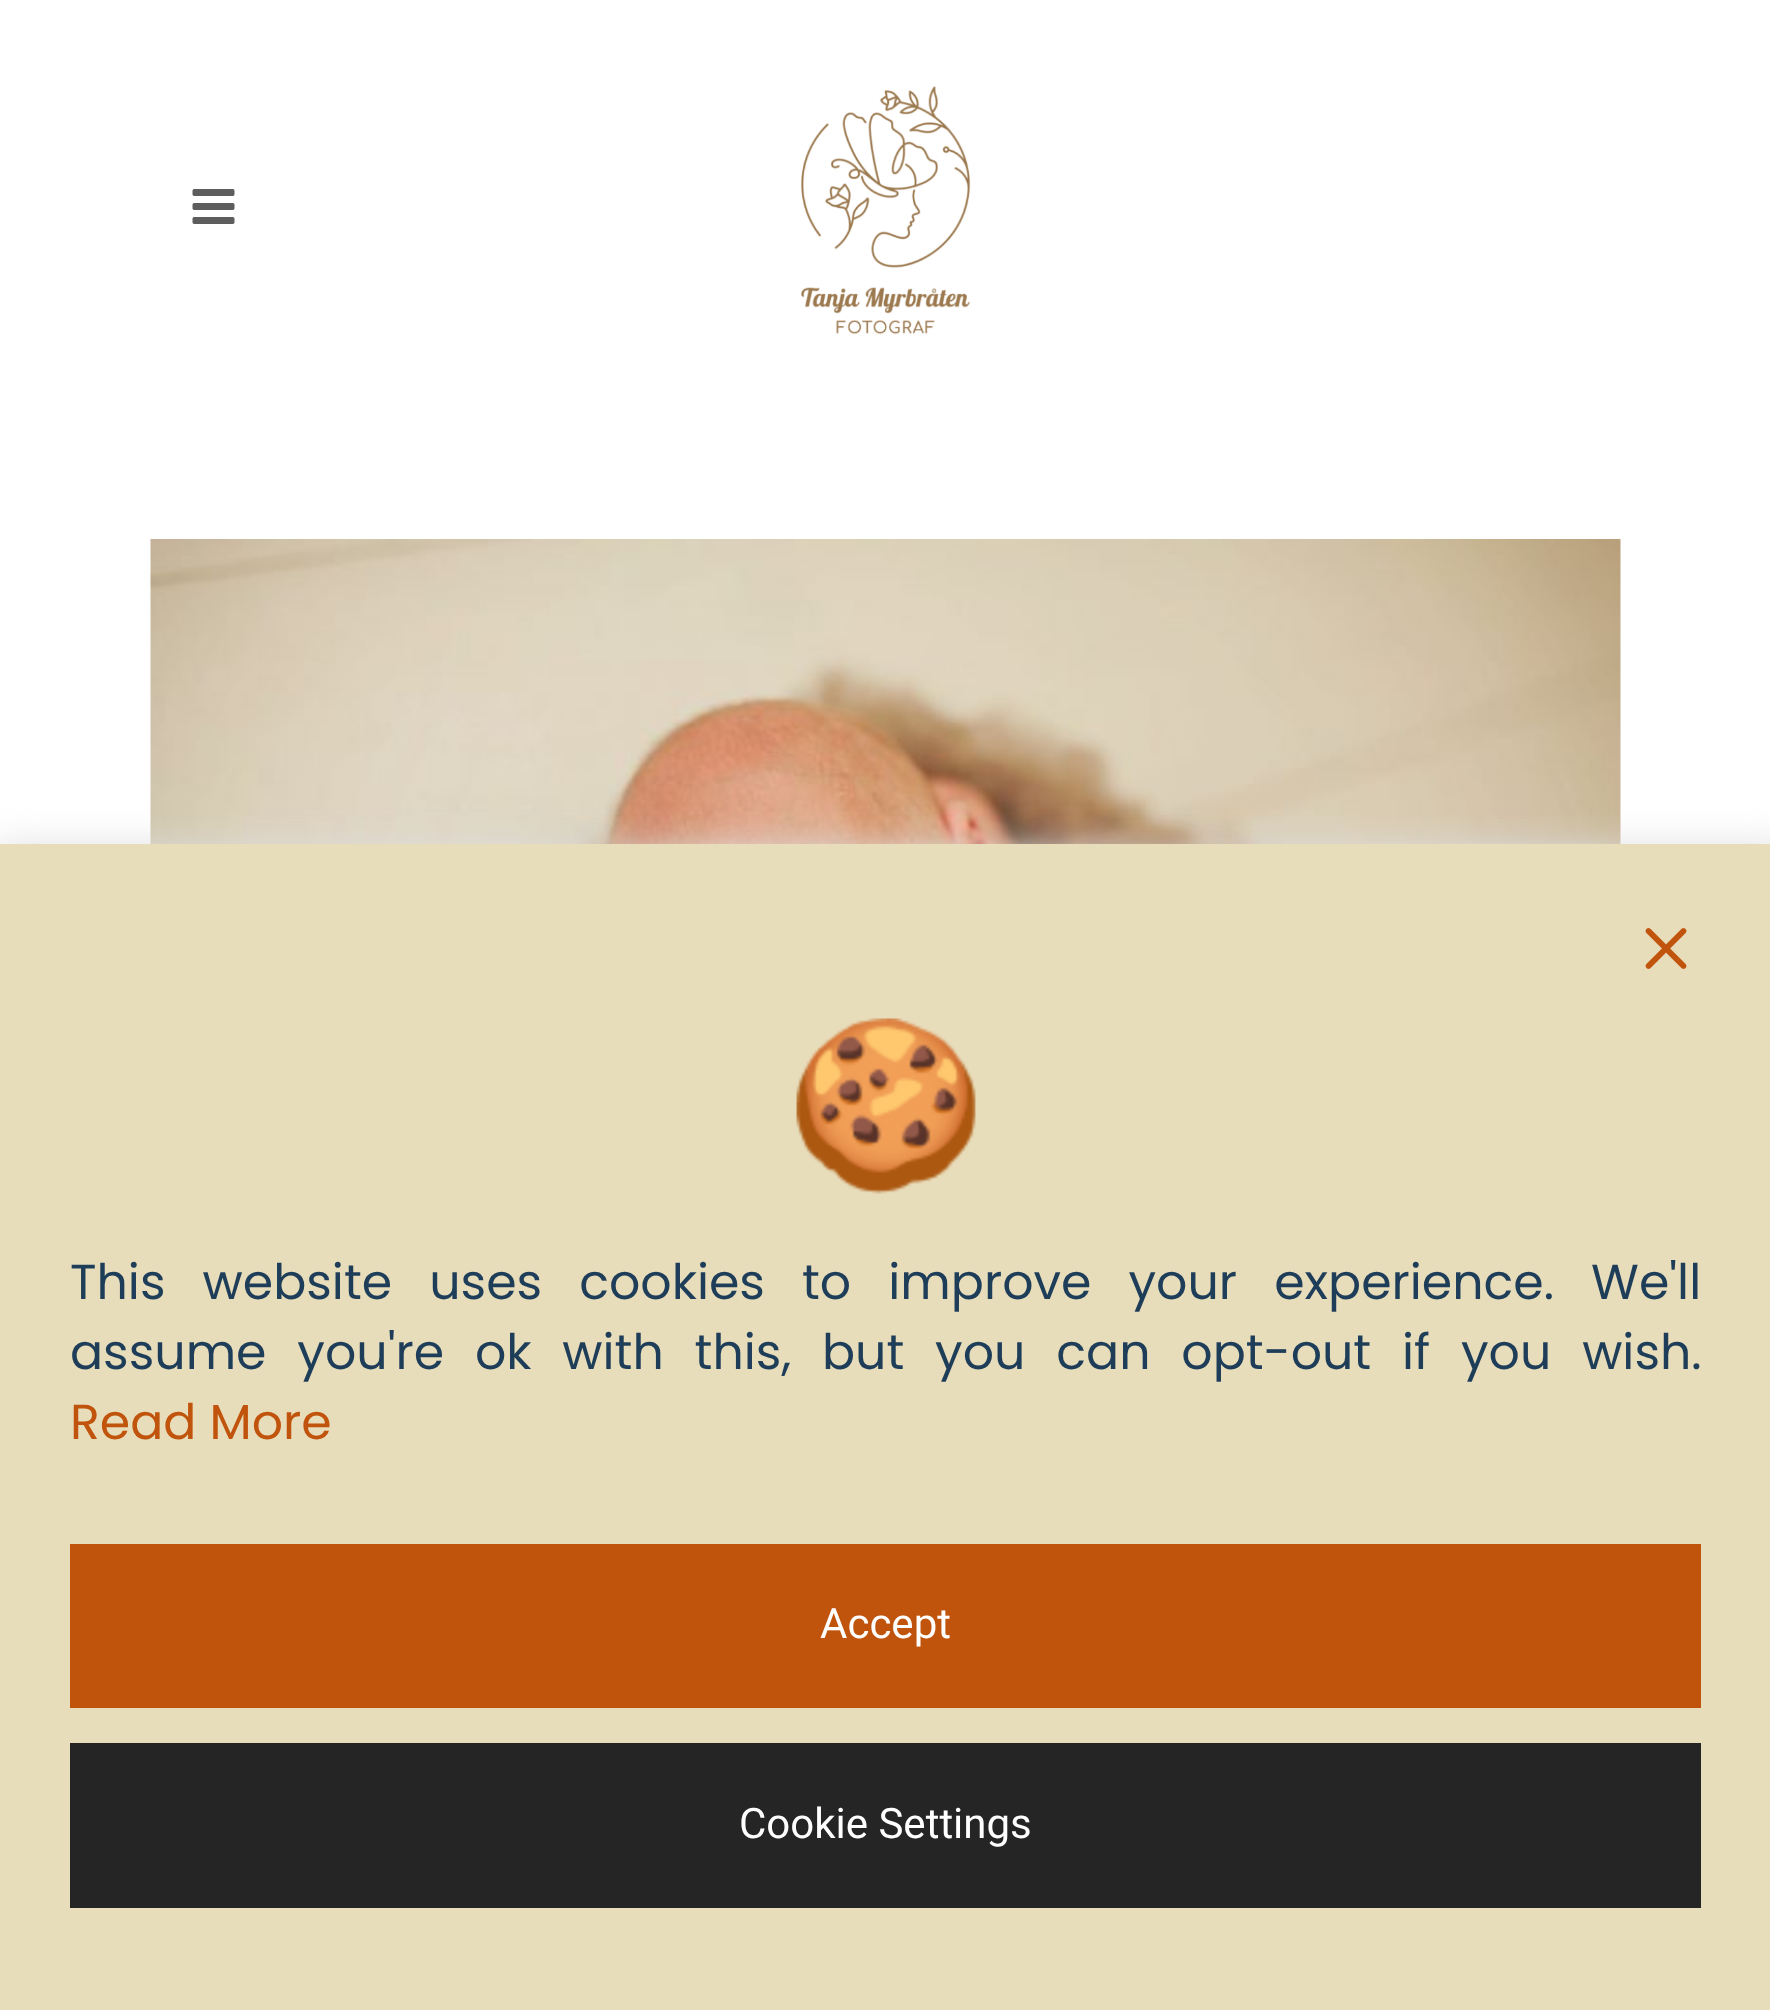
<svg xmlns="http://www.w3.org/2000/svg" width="1770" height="2010">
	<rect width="100%" height="100%" fill="#FFFFFF" />
	<image x="192" y="189" width="43" height="35" href="assets/img1.png" />
	<image x="800" y="86" width="171" height="249" href="assets/img2.png" />
	<image x="150" y="539" width="1471" height="305" href="assets/img3.png" />
	<rect x="-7" y="847" width="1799" height="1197" fill="#DDDDDD" filter="blur(19px)" />
	<rect x="0" y="844" width="1770" height="1166" fill="#E8DDBB" />
	<image x="1645" y="928" width="42" height="41" href="assets/img4.png" />
	<image x="796" y="1018" width="180" height="176" href="assets/img5.png" />
	<g font-family="Poppins" font-size="49" fill="#1E3D59">
		<text x="70" y="1299" word-spacing="24">This website uses cookies to improve your experience. We'll</text>
		<text x="70" y="1369" word-spacing="17.75">assume you're ok with this, but you can opt-out if you wish.</text>
	</g>
	<text x="70" y="1439" font-family="Poppins" font-size="49" fill="#C1540C">Read More</text>
	<rect x="70" y="1544" width="1631" height="164" fill="#C1540C" />
	<text x="820" y="1638" font-family="Roboto" font-size="42" fill="#FFFFFF">Accept</text>
	<rect x="70" y="1743" width="1631" height="165" fill="#252525" />
	<text x="739" y="1838" font-family="Roboto" font-size="42" fill="#FFFFFF">Cookie Settings</text>
</svg>
